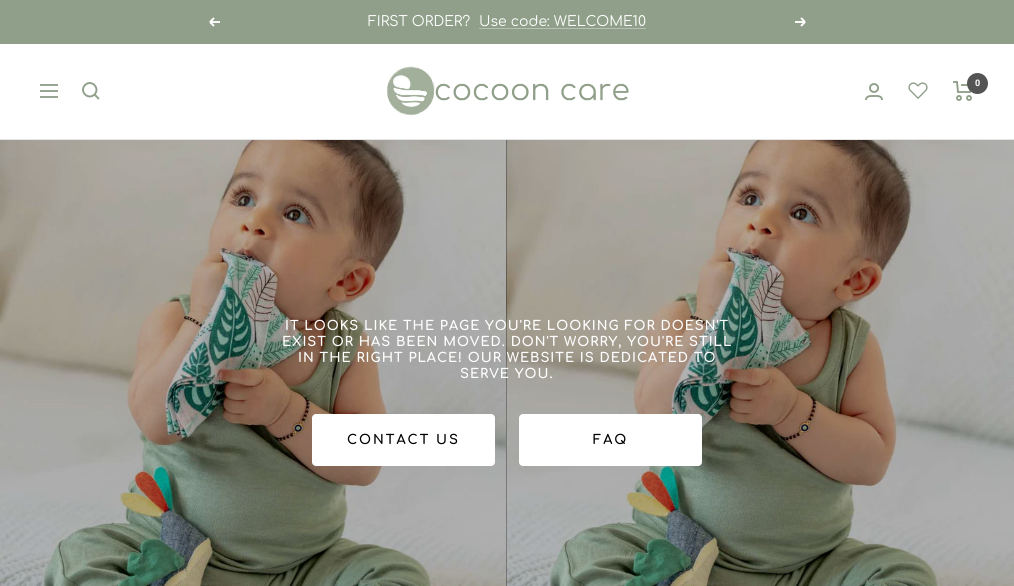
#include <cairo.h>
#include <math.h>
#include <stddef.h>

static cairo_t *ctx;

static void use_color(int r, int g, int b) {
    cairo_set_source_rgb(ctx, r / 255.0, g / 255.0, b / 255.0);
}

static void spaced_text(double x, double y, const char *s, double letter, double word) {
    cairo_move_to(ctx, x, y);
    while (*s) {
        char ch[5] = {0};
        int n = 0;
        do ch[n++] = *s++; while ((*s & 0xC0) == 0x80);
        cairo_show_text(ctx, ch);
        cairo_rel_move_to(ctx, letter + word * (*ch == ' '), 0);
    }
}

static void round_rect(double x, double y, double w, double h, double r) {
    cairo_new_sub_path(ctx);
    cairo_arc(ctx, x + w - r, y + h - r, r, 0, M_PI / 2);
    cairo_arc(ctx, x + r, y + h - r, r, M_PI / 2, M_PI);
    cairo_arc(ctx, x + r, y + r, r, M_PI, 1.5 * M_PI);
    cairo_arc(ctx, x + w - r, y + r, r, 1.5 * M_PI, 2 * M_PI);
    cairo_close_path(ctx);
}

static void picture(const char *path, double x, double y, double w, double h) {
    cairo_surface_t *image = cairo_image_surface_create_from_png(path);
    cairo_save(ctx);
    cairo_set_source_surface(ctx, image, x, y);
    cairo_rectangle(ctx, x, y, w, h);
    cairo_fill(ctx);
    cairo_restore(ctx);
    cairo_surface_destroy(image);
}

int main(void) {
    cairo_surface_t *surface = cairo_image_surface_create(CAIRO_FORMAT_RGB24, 1014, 586);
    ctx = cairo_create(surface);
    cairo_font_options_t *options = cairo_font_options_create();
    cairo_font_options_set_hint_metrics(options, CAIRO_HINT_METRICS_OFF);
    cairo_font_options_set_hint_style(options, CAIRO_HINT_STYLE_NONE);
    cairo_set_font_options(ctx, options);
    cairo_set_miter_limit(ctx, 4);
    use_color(255, 255, 255);
    cairo_paint(ctx);
    use_color(144, 159, 138);
    cairo_rectangle(ctx, 0, 0, 1014, 44);
    cairo_fill(ctx);
    cairo_new_path(ctx);
    cairo_move_to(ctx, 220, 22);
    cairo_line_to(ctx, 210, 22);
    cairo_move_to(ctx, 210, 22);
    cairo_line_to(ctx, 214, 26);
    cairo_move_to(ctx, 210, 22);
    cairo_line_to(ctx, 214, 18);
    use_color(255, 255, 255);
    cairo_set_line_width(ctx, 1.9);
    cairo_stroke(ctx);
    cairo_select_font_face(ctx, "Comfortaa", CAIRO_FONT_SLANT_NORMAL, CAIRO_FONT_WEIGHT_NORMAL);
    cairo_set_font_size(ctx, 14);
    cairo_move_to(ctx, 368, 26);
    cairo_show_text(ctx, "FIRST ORDER?");
    cairo_move_to(ctx, 479, 26);
    cairo_show_text(ctx, "Use code: WELCOME10");
    use_color(183, 193, 179);
    cairo_rectangle(ctx, 479, 28, 167, 1);
    cairo_fill(ctx);
    cairo_new_path(ctx);
    cairo_move_to(ctx, 795, 22);
    cairo_line_to(ctx, 805, 22);
    cairo_move_to(ctx, 805, 22);
    cairo_line_to(ctx, 801, 26);
    cairo_move_to(ctx, 805, 22);
    cairo_line_to(ctx, 801, 18);
    use_color(255, 255, 255);
    cairo_stroke(ctx);
    use_color(229, 229, 229);
    cairo_rectangle(ctx, 0, 139, 1014, 1);
    cairo_fill(ctx);
    cairo_new_path(ctx);
    cairo_move_to(ctx, 40, 85);
    cairo_line_to(ctx, 58, 85);
    cairo_move_to(ctx, 40, 97);
    cairo_line_to(ctx, 58, 97);
    cairo_close_path(ctx);
    cairo_move_to(ctx, 40, 91);
    cairo_line_to(ctx, 58, 91);
    cairo_close_path(ctx);
    cairo_move_to(ctx, 94.5, 94.5);
    cairo_curve_to(ctx, 100.5, 88, 91.5, 79, 85, 85);
    cairo_curve_to(ctx, 79, 91.5, 88, 100.5, 94.5, 94.5);
    cairo_close_path(ctx);
    cairo_move_to(ctx, 94.5, 94.5);
    cairo_line_to(ctx, 99, 99);
    use_color(144, 159, 138);
    cairo_stroke(ctx);
    picture("img1.png", 387, 66, 242, 50);
    cairo_arc(ctx, 874, 88, 4, 0, 2 * M_PI);
    cairo_stroke(ctx);
    cairo_new_path(ctx);
    cairo_move_to(ctx, 866, 100);
    cairo_curve_to(ctx, 866, 95.5, 871, 96, 874, 96);
    cairo_curve_to(ctx, 877, 96, 882, 95.5, 882, 100);
    cairo_stroke(ctx);
    picture("img2.png", 908, 82, 20, 17);
    cairo_new_path(ctx);
    cairo_move_to(ctx, 953, 82);
    cairo_line_to(ctx, 957, 82);
    cairo_line_to(ctx, 958, 92);
    cairo_line_to(ctx, 970, 92);
    cairo_line_to(ctx, 972, 85);
    cairo_line_to(ctx, 961, 85);
    cairo_stroke(ctx);
    cairo_arc(ctx, 959, 98, 2, 0, 2 * M_PI);
    cairo_stroke(ctx);
    cairo_arc(ctx, 969, 98, 2, 0, 2 * M_PI);
    cairo_stroke(ctx);
    use_color(84, 84, 84);
    cairo_arc(ctx, 977.5, 83.5, 10.5, 0, 2 * M_PI);
    cairo_fill(ctx);
    cairo_select_font_face(ctx, "Roboto", CAIRO_FONT_SLANT_NORMAL, CAIRO_FONT_WEIGHT_BOLD);
    cairo_set_font_size(ctx, 9);
    use_color(255, 255, 255);
    cairo_move_to(ctx, 975, 86);
    cairo_show_text(ctx, "0");
    picture("img3.png", 0, 140, 506, 446);
    picture("img4.png", 506, 140, 508, 446);
    cairo_set_source_rgba(ctx, 0, 0, 0, 0.3);
    cairo_rectangle(ctx, 0, 140, 507, 446);
    cairo_fill(ctx);
    cairo_rectangle(ctx, 506, 140, 508, 446);
    cairo_fill(ctx);
    cairo_select_font_face(ctx, "Comfortaa", CAIRO_FONT_SLANT_NORMAL, CAIRO_FONT_WEIGHT_BOLD);
    cairo_set_font_size(ctx, 13);
    use_color(255, 255, 255);
    spaced_text(285, 330, "IT LOOKS LIKE THE PAGE YOU'RE LOOKING FOR DOESN'T", 1, 0);
    spaced_text(282, 346, "EXIST OR HAS BEEN MOVED. DON'T WORRY, YOU'RE STILL", 1, 0);
    spaced_text(298, 362, "IN THE RIGHT PLACE! OUR WEBSITE IS DEDICATED TO", 1, 0);
    spaced_text(460, 378, "SERVE YOU.", 1, 0);
    round_rect(312, 414, 183, 52, 4);
    cairo_fill(ctx);
    use_color(0, 0, 0);
    spaced_text(347, 444, "CONTACT US", 2, 0);
    use_color(255, 255, 255);
    round_rect(519, 414, 183, 52, 4);
    cairo_fill(ctx);
    use_color(0, 0, 0);
    spaced_text(593, 444, "FAQ", 2, 0);
    cairo_surface_write_to_png(surface, "result.png");
    cairo_font_options_destroy(options);
    cairo_destroy(ctx);
    cairo_surface_destroy(surface);
    return 0;
}
